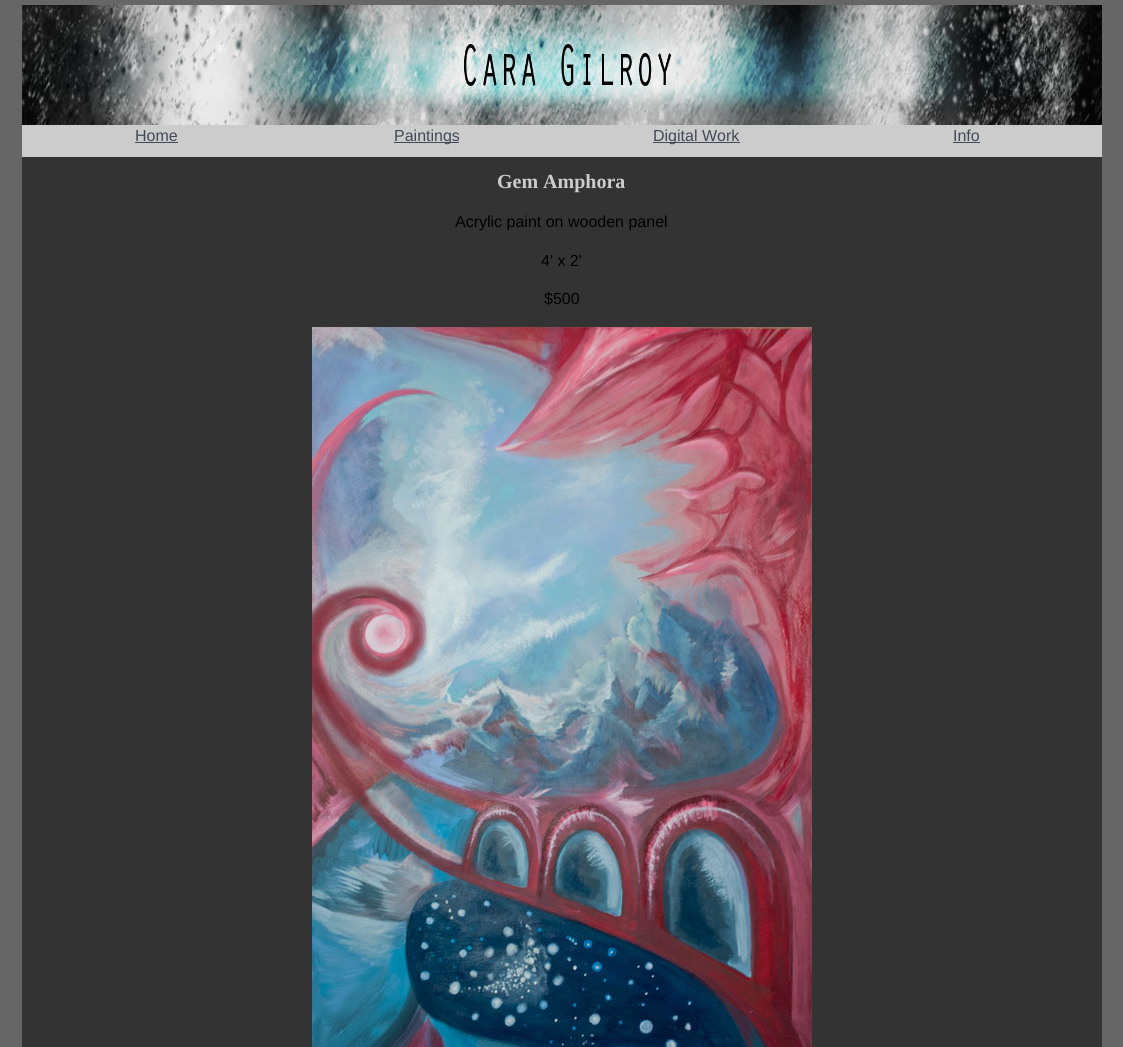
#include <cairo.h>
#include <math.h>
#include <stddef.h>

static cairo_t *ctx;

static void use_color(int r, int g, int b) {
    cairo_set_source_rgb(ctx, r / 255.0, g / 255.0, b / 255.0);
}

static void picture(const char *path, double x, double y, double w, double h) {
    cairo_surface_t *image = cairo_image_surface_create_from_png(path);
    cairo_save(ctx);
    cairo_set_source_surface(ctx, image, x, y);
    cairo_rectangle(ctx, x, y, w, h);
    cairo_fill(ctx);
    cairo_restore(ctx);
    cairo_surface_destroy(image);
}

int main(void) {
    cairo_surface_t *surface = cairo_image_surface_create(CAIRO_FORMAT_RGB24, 1123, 1047);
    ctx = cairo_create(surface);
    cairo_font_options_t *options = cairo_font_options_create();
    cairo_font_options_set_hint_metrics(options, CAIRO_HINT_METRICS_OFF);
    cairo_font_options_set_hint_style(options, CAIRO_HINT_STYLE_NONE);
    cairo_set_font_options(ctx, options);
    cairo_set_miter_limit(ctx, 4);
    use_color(102, 102, 102);
    cairo_paint(ctx);
    picture("img1.png", 22, 5, 1080, 120);
    use_color(204, 204, 204);
    cairo_rectangle(ctx, 22, 125, 1080, 32);
    cairo_fill(ctx);
    cairo_select_font_face(ctx, "Liberation Sans", CAIRO_FONT_SLANT_NORMAL, CAIRO_FONT_WEIGHT_NORMAL);
    cairo_set_font_size(ctx, 16);
    use_color(65, 73, 88);
    cairo_move_to(ctx, 135, 141);
    cairo_show_text(ctx, "Home");
    cairo_rectangle(ctx, 135, 142, 43, 1);
    cairo_fill(ctx);
    cairo_rectangle(ctx, 394, 142, 65, 1);
    cairo_fill(ctx);
    cairo_move_to(ctx, 394, 141);
    cairo_show_text(ctx, "Paintings");
    cairo_rectangle(ctx, 653, 142, 87, 1);
    cairo_fill(ctx);
    cairo_move_to(ctx, 653, 141);
    cairo_show_text(ctx, "Digital Work");
    cairo_move_to(ctx, 953, 141);
    cairo_show_text(ctx, "Info");
    cairo_rectangle(ctx, 953, 142, 27, 1);
    cairo_fill(ctx);
    use_color(51, 51, 51);
    cairo_rectangle(ctx, 22, 157, 1080, 890);
    cairo_fill(ctx);
    cairo_select_font_face(ctx, "Liberation Serif", CAIRO_FONT_SLANT_NORMAL, CAIRO_FONT_WEIGHT_BOLD);
    cairo_set_font_size(ctx, 20);
    use_color(204, 204, 204);
    cairo_move_to(ctx, 497, 188);
    cairo_show_text(ctx, "Gem Amphora");
    cairo_select_font_face(ctx, "Liberation Sans", CAIRO_FONT_SLANT_NORMAL, CAIRO_FONT_WEIGHT_NORMAL);
    cairo_set_font_size(ctx, 16);
    use_color(0, 0, 0);
    cairo_move_to(ctx, 455, 227);
    cairo_show_text(ctx, "Acrylic paint on wooden panel");
    cairo_move_to(ctx, 541, 266);
    cairo_show_text(ctx, "4' x 2'");
    cairo_move_to(ctx, 544, 304);
    cairo_show_text(ctx, "$500");
    picture("img2.png", 312, 327, 500, 720);
    cairo_surface_write_to_png(surface, "result.png");
    cairo_font_options_destroy(options);
    cairo_destroy(ctx);
    cairo_surface_destroy(surface);
    return 0;
}
